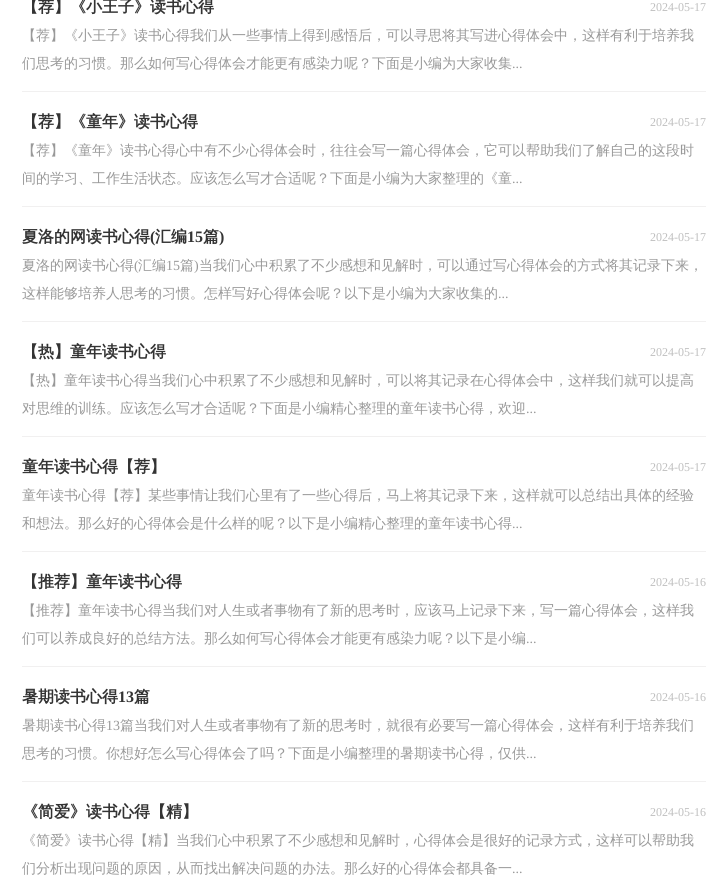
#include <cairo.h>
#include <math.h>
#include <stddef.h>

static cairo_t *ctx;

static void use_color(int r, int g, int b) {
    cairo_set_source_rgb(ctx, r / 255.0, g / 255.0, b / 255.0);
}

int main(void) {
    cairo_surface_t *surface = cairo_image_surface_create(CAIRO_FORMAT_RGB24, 728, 880);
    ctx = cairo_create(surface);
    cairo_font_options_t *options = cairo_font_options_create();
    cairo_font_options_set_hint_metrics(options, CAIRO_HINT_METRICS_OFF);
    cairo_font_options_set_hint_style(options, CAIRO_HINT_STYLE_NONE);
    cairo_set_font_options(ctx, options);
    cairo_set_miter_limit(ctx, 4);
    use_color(255, 255, 255);
    cairo_paint(ctx);
    use_color(241, 240, 240);
    cairo_rectangle(ctx, 22, 91, 684, 1);
    cairo_fill(ctx);
    cairo_select_font_face(ctx, "WenQuanYi Zen Hei", CAIRO_FONT_SLANT_NORMAL, CAIRO_FONT_WEIGHT_BOLD);
    cairo_set_font_size(ctx, 16);
    use_color(51, 51, 51);
    cairo_move_to(ctx, 22, 12);
    cairo_show_text(ctx, "【荐】《小王子》读书心得");
    cairo_select_font_face(ctx, "Liberation Serif", CAIRO_FONT_SLANT_NORMAL, CAIRO_FONT_WEIGHT_NORMAL);
    cairo_set_font_size(ctx, 12);
    use_color(191, 191, 191);
    cairo_move_to(ctx, 650, 11);
    cairo_show_text(ctx, "2024-05-17");
    cairo_select_font_face(ctx, "WenQuanYi Zen Hei Medium", CAIRO_FONT_SLANT_NORMAL, CAIRO_FONT_WEIGHT_NORMAL);
    cairo_set_font_size(ctx, 14);
    use_color(153, 153, 153);
    cairo_move_to(ctx, 22, 40);
    cairo_show_text(ctx, "【荐】《小王子》读书心得我们从一些事情上得到感悟后，可以寻思将其写进心得体会中，这样有利于培养我");
    cairo_move_to(ctx, 22, 68);
    cairo_show_text(ctx, "们思考的习惯。那么如何写心得体会才能更有感染力呢？下面是小编为大家收集");
    cairo_select_font_face(ctx, "Liberation Serif", CAIRO_FONT_SLANT_NORMAL, CAIRO_FONT_WEIGHT_NORMAL);
    cairo_move_to(ctx, 512, 68);
    cairo_show_text(ctx, "...");
    use_color(241, 240, 240);
    cairo_rectangle(ctx, 22, 206, 684, 1);
    cairo_fill(ctx);
    cairo_select_font_face(ctx, "WenQuanYi Zen Hei", CAIRO_FONT_SLANT_NORMAL, CAIRO_FONT_WEIGHT_BOLD);
    cairo_set_font_size(ctx, 16);
    use_color(51, 51, 51);
    cairo_move_to(ctx, 22, 127);
    cairo_show_text(ctx, "【荐】《童年》读书心得");
    cairo_select_font_face(ctx, "Liberation Serif", CAIRO_FONT_SLANT_NORMAL, CAIRO_FONT_WEIGHT_NORMAL);
    cairo_set_font_size(ctx, 12);
    use_color(191, 191, 191);
    cairo_move_to(ctx, 650, 126);
    cairo_show_text(ctx, "2024-05-17");
    cairo_select_font_face(ctx, "WenQuanYi Zen Hei Medium", CAIRO_FONT_SLANT_NORMAL, CAIRO_FONT_WEIGHT_NORMAL);
    cairo_set_font_size(ctx, 14);
    use_color(153, 153, 153);
    cairo_move_to(ctx, 22, 155);
    cairo_show_text(ctx, "【荐】《童年》读书心得心中有不少心得体会时，往往会写一篇心得体会，它可以帮助我们了解自己的这段时");
    cairo_move_to(ctx, 22, 183);
    cairo_show_text(ctx, "间的学习、工作生活状态。应该怎么写才合适呢？下面是小编为大家整理的《童");
    cairo_select_font_face(ctx, "Liberation Serif", CAIRO_FONT_SLANT_NORMAL, CAIRO_FONT_WEIGHT_NORMAL);
    cairo_move_to(ctx, 512, 183);
    cairo_show_text(ctx, "...");
    use_color(241, 240, 240);
    cairo_rectangle(ctx, 22, 321, 684, 1);
    cairo_fill(ctx);
    cairo_select_font_face(ctx, "WenQuanYi Zen Hei", CAIRO_FONT_SLANT_NORMAL, CAIRO_FONT_WEIGHT_BOLD);
    cairo_set_font_size(ctx, 16);
    use_color(51, 51, 51);
    cairo_move_to(ctx, 22, 242);
    cairo_show_text(ctx, "夏洛的网读书心得");
    cairo_select_font_face(ctx, "Liberation Serif", CAIRO_FONT_SLANT_NORMAL, CAIRO_FONT_WEIGHT_BOLD);
    cairo_move_to(ctx, 150, 242);
    cairo_show_text(ctx, "(");
    cairo_select_font_face(ctx, "WenQuanYi Zen Hei", CAIRO_FONT_SLANT_NORMAL, CAIRO_FONT_WEIGHT_BOLD);
    cairo_move_to(ctx, 155, 242);
    cairo_show_text(ctx, "汇编");
    cairo_select_font_face(ctx, "Liberation Serif", CAIRO_FONT_SLANT_NORMAL, CAIRO_FONT_WEIGHT_BOLD);
    cairo_move_to(ctx, 187, 242);
    cairo_show_text(ctx, "15");
    cairo_select_font_face(ctx, "WenQuanYi Zen Hei", CAIRO_FONT_SLANT_NORMAL, CAIRO_FONT_WEIGHT_BOLD);
    cairo_move_to(ctx, 203, 242);
    cairo_show_text(ctx, "篇");
    cairo_select_font_face(ctx, "Liberation Serif", CAIRO_FONT_SLANT_NORMAL, CAIRO_FONT_WEIGHT_BOLD);
    cairo_move_to(ctx, 219, 242);
    cairo_show_text(ctx, ")");
    cairo_select_font_face(ctx, "Liberation Serif", CAIRO_FONT_SLANT_NORMAL, CAIRO_FONT_WEIGHT_NORMAL);
    cairo_set_font_size(ctx, 12);
    use_color(191, 191, 191);
    cairo_move_to(ctx, 650, 241);
    cairo_show_text(ctx, "2024-05-17");
    cairo_select_font_face(ctx, "WenQuanYi Zen Hei Medium", CAIRO_FONT_SLANT_NORMAL, CAIRO_FONT_WEIGHT_NORMAL);
    cairo_set_font_size(ctx, 14);
    use_color(153, 153, 153);
    cairo_move_to(ctx, 22, 270);
    cairo_show_text(ctx, "夏洛的网读书心得");
    cairo_select_font_face(ctx, "Liberation Serif", CAIRO_FONT_SLANT_NORMAL, CAIRO_FONT_WEIGHT_NORMAL);
    cairo_move_to(ctx, 134, 270);
    cairo_show_text(ctx, "(");
    cairo_select_font_face(ctx, "WenQuanYi Zen Hei Medium", CAIRO_FONT_SLANT_NORMAL, CAIRO_FONT_WEIGHT_NORMAL);
    cairo_move_to(ctx, 138, 270);
    cairo_show_text(ctx, "汇编");
    cairo_select_font_face(ctx, "Liberation Serif", CAIRO_FONT_SLANT_NORMAL, CAIRO_FONT_WEIGHT_NORMAL);
    cairo_move_to(ctx, 166, 270);
    cairo_show_text(ctx, "15");
    cairo_select_font_face(ctx, "WenQuanYi Zen Hei Medium", CAIRO_FONT_SLANT_NORMAL, CAIRO_FONT_WEIGHT_NORMAL);
    cairo_move_to(ctx, 180, 270);
    cairo_show_text(ctx, "篇");
    cairo_select_font_face(ctx, "Liberation Serif", CAIRO_FONT_SLANT_NORMAL, CAIRO_FONT_WEIGHT_NORMAL);
    cairo_move_to(ctx, 194, 270);
    cairo_show_text(ctx, ")");
    cairo_select_font_face(ctx, "WenQuanYi Zen Hei Medium", CAIRO_FONT_SLANT_NORMAL, CAIRO_FONT_WEIGHT_NORMAL);
    cairo_move_to(ctx, 199, 270);
    cairo_show_text(ctx, "当我们心中积累了不少感想和见解时，可以通过写心得体会的方式将其记录下来，");
    cairo_move_to(ctx, 22, 298);
    cairo_show_text(ctx, "这样能够培养人思考的习惯。怎样写好心得体会呢？以下是小编为大家收集的");
    cairo_select_font_face(ctx, "Liberation Serif", CAIRO_FONT_SLANT_NORMAL, CAIRO_FONT_WEIGHT_NORMAL);
    cairo_move_to(ctx, 498, 298);
    cairo_show_text(ctx, "...");
    use_color(241, 240, 240);
    cairo_rectangle(ctx, 22, 436, 684, 1);
    cairo_fill(ctx);
    cairo_select_font_face(ctx, "WenQuanYi Zen Hei", CAIRO_FONT_SLANT_NORMAL, CAIRO_FONT_WEIGHT_BOLD);
    cairo_set_font_size(ctx, 16);
    use_color(51, 51, 51);
    cairo_move_to(ctx, 22, 357);
    cairo_show_text(ctx, "【热】童年读书心得");
    cairo_select_font_face(ctx, "Liberation Serif", CAIRO_FONT_SLANT_NORMAL, CAIRO_FONT_WEIGHT_NORMAL);
    cairo_set_font_size(ctx, 12);
    use_color(191, 191, 191);
    cairo_move_to(ctx, 650, 356);
    cairo_show_text(ctx, "2024-05-17");
    cairo_select_font_face(ctx, "WenQuanYi Zen Hei Medium", CAIRO_FONT_SLANT_NORMAL, CAIRO_FONT_WEIGHT_NORMAL);
    cairo_set_font_size(ctx, 14);
    use_color(153, 153, 153);
    cairo_move_to(ctx, 22, 385);
    cairo_show_text(ctx, "【热】童年读书心得当我们心中积累了不少感想和见解时，可以将其记录在心得体会中，这样我们就可以提高");
    cairo_move_to(ctx, 22, 413);
    cairo_show_text(ctx, "对思维的训练。应该怎么写才合适呢？下面是小编精心整理的童年读书心得，欢迎");
    cairo_select_font_face(ctx, "Liberation Serif", CAIRO_FONT_SLANT_NORMAL, CAIRO_FONT_WEIGHT_NORMAL);
    cairo_move_to(ctx, 526, 413);
    cairo_show_text(ctx, "...");
    use_color(241, 240, 240);
    cairo_rectangle(ctx, 22, 551, 684, 1);
    cairo_fill(ctx);
    cairo_select_font_face(ctx, "WenQuanYi Zen Hei", CAIRO_FONT_SLANT_NORMAL, CAIRO_FONT_WEIGHT_BOLD);
    cairo_set_font_size(ctx, 16);
    use_color(51, 51, 51);
    cairo_move_to(ctx, 22, 472);
    cairo_show_text(ctx, "童年读书心得【荐】");
    cairo_select_font_face(ctx, "Liberation Serif", CAIRO_FONT_SLANT_NORMAL, CAIRO_FONT_WEIGHT_NORMAL);
    cairo_set_font_size(ctx, 12);
    use_color(191, 191, 191);
    cairo_move_to(ctx, 650, 471);
    cairo_show_text(ctx, "2024-05-17");
    cairo_select_font_face(ctx, "WenQuanYi Zen Hei Medium", CAIRO_FONT_SLANT_NORMAL, CAIRO_FONT_WEIGHT_NORMAL);
    cairo_set_font_size(ctx, 14);
    use_color(153, 153, 153);
    cairo_move_to(ctx, 22, 500);
    cairo_show_text(ctx, "童年读书心得【荐】某些事情让我们心里有了一些心得后，马上将其记录下来，这样就可以总结出具体的经验");
    cairo_move_to(ctx, 22, 528);
    cairo_show_text(ctx, "和想法。那么好的心得体会是什么样的呢？以下是小编精心整理的童年读书心得");
    cairo_select_font_face(ctx, "Liberation Serif", CAIRO_FONT_SLANT_NORMAL, CAIRO_FONT_WEIGHT_NORMAL);
    cairo_move_to(ctx, 512, 528);
    cairo_show_text(ctx, "...");
    use_color(241, 240, 240);
    cairo_rectangle(ctx, 22, 666, 684, 1);
    cairo_fill(ctx);
    cairo_select_font_face(ctx, "WenQuanYi Zen Hei", CAIRO_FONT_SLANT_NORMAL, CAIRO_FONT_WEIGHT_BOLD);
    cairo_set_font_size(ctx, 16);
    use_color(51, 51, 51);
    cairo_move_to(ctx, 22, 587);
    cairo_show_text(ctx, "【推荐】童年读书心得");
    cairo_select_font_face(ctx, "Liberation Serif", CAIRO_FONT_SLANT_NORMAL, CAIRO_FONT_WEIGHT_NORMAL);
    cairo_set_font_size(ctx, 12);
    use_color(191, 191, 191);
    cairo_move_to(ctx, 650, 586);
    cairo_show_text(ctx, "2024-05-16");
    cairo_select_font_face(ctx, "WenQuanYi Zen Hei Medium", CAIRO_FONT_SLANT_NORMAL, CAIRO_FONT_WEIGHT_NORMAL);
    cairo_set_font_size(ctx, 14);
    use_color(153, 153, 153);
    cairo_move_to(ctx, 22, 615);
    cairo_show_text(ctx, "【推荐】童年读书心得当我们对人生或者事物有了新的思考时，应该马上记录下来，写一篇心得体会，这样我");
    cairo_move_to(ctx, 22, 643);
    cairo_show_text(ctx, "们可以养成良好的总结方法。那么如何写心得体会才能更有感染力呢？以下是小编");
    cairo_select_font_face(ctx, "Liberation Serif", CAIRO_FONT_SLANT_NORMAL, CAIRO_FONT_WEIGHT_NORMAL);
    cairo_move_to(ctx, 526, 643);
    cairo_show_text(ctx, "...");
    use_color(241, 240, 240);
    cairo_rectangle(ctx, 22, 781, 684, 1);
    cairo_fill(ctx);
    cairo_select_font_face(ctx, "WenQuanYi Zen Hei", CAIRO_FONT_SLANT_NORMAL, CAIRO_FONT_WEIGHT_BOLD);
    cairo_set_font_size(ctx, 16);
    use_color(51, 51, 51);
    cairo_move_to(ctx, 22, 702);
    cairo_show_text(ctx, "暑期读书心得");
    cairo_select_font_face(ctx, "Liberation Serif", CAIRO_FONT_SLANT_NORMAL, CAIRO_FONT_WEIGHT_BOLD);
    cairo_move_to(ctx, 118, 702);
    cairo_show_text(ctx, "13");
    cairo_select_font_face(ctx, "WenQuanYi Zen Hei", CAIRO_FONT_SLANT_NORMAL, CAIRO_FONT_WEIGHT_BOLD);
    cairo_move_to(ctx, 134, 702);
    cairo_show_text(ctx, "篇");
    cairo_select_font_face(ctx, "Liberation Serif", CAIRO_FONT_SLANT_NORMAL, CAIRO_FONT_WEIGHT_NORMAL);
    cairo_set_font_size(ctx, 12);
    use_color(191, 191, 191);
    cairo_move_to(ctx, 650, 701);
    cairo_show_text(ctx, "2024-05-16");
    cairo_select_font_face(ctx, "WenQuanYi Zen Hei Medium", CAIRO_FONT_SLANT_NORMAL, CAIRO_FONT_WEIGHT_NORMAL);
    cairo_set_font_size(ctx, 14);
    use_color(153, 153, 153);
    cairo_move_to(ctx, 22, 730);
    cairo_show_text(ctx, "暑期读书心得");
    cairo_select_font_face(ctx, "Liberation Serif", CAIRO_FONT_SLANT_NORMAL, CAIRO_FONT_WEIGHT_NORMAL);
    cairo_move_to(ctx, 106, 730);
    cairo_show_text(ctx, "13");
    cairo_select_font_face(ctx, "WenQuanYi Zen Hei Medium", CAIRO_FONT_SLANT_NORMAL, CAIRO_FONT_WEIGHT_NORMAL);
    cairo_move_to(ctx, 120, 730);
    cairo_show_text(ctx, "篇当我们对人生或者事物有了新的思考时，就很有必要写一篇心得体会，这样有利于培养我们");
    cairo_move_to(ctx, 22, 758);
    cairo_show_text(ctx, "思考的习惯。你想好怎么写心得体会了吗？下面是小编整理的暑期读书心得，仅供");
    cairo_select_font_face(ctx, "Liberation Serif", CAIRO_FONT_SLANT_NORMAL, CAIRO_FONT_WEIGHT_NORMAL);
    cairo_move_to(ctx, 526, 758);
    cairo_show_text(ctx, "...");
    cairo_select_font_face(ctx, "WenQuanYi Zen Hei", CAIRO_FONT_SLANT_NORMAL, CAIRO_FONT_WEIGHT_BOLD);
    cairo_set_font_size(ctx, 16);
    use_color(51, 51, 51);
    cairo_move_to(ctx, 22, 817);
    cairo_show_text(ctx, "《简爱》读书心得【精】");
    cairo_select_font_face(ctx, "Liberation Serif", CAIRO_FONT_SLANT_NORMAL, CAIRO_FONT_WEIGHT_NORMAL);
    cairo_set_font_size(ctx, 12);
    use_color(191, 191, 191);
    cairo_move_to(ctx, 650, 816);
    cairo_show_text(ctx, "2024-05-16");
    cairo_select_font_face(ctx, "WenQuanYi Zen Hei Medium", CAIRO_FONT_SLANT_NORMAL, CAIRO_FONT_WEIGHT_NORMAL);
    cairo_set_font_size(ctx, 14);
    use_color(153, 153, 153);
    cairo_move_to(ctx, 22, 845);
    cairo_show_text(ctx, "《简爱》读书心得【精】当我们心中积累了不少感想和见解时，心得体会是很好的记录方式，这样可以帮助我");
    cairo_move_to(ctx, 22, 873);
    cairo_show_text(ctx, "们分析出现问题的原因，从而找出解决问题的办法。那么好的心得体会都具备一");
    cairo_select_font_face(ctx, "Liberation Serif", CAIRO_FONT_SLANT_NORMAL, CAIRO_FONT_WEIGHT_NORMAL);
    cairo_move_to(ctx, 512, 873);
    cairo_show_text(ctx, "...");
    cairo_surface_write_to_png(surface, "result.png");
    cairo_font_options_destroy(options);
    cairo_destroy(ctx);
    cairo_surface_destroy(surface);
    return 0;
}
